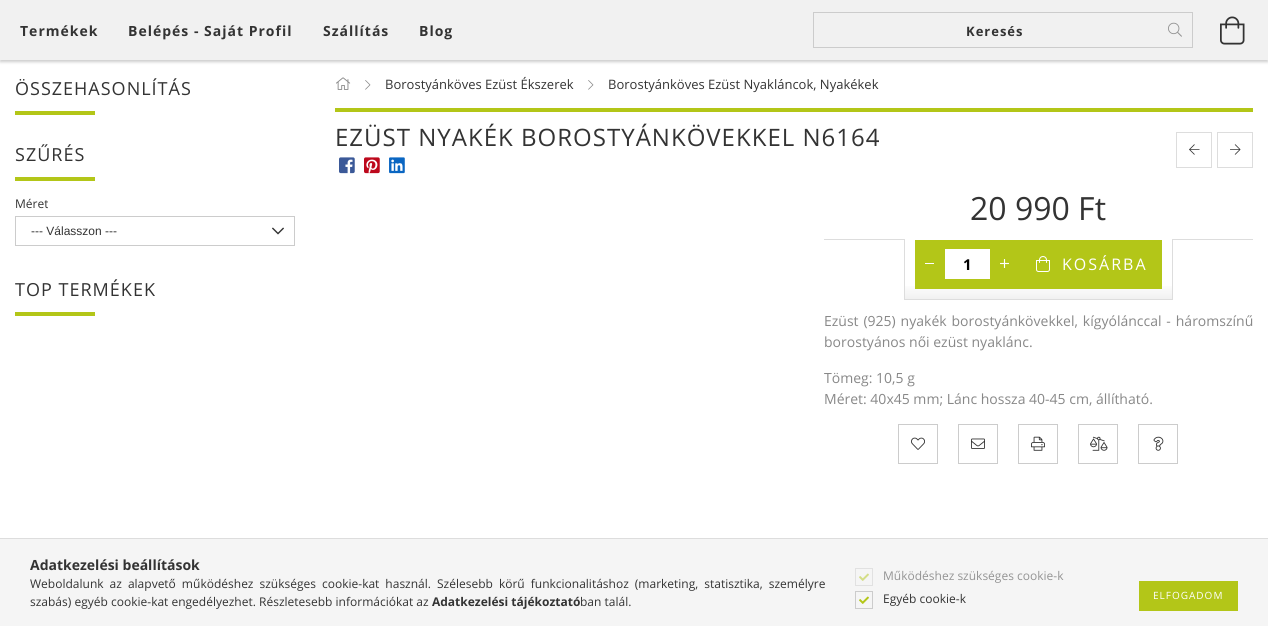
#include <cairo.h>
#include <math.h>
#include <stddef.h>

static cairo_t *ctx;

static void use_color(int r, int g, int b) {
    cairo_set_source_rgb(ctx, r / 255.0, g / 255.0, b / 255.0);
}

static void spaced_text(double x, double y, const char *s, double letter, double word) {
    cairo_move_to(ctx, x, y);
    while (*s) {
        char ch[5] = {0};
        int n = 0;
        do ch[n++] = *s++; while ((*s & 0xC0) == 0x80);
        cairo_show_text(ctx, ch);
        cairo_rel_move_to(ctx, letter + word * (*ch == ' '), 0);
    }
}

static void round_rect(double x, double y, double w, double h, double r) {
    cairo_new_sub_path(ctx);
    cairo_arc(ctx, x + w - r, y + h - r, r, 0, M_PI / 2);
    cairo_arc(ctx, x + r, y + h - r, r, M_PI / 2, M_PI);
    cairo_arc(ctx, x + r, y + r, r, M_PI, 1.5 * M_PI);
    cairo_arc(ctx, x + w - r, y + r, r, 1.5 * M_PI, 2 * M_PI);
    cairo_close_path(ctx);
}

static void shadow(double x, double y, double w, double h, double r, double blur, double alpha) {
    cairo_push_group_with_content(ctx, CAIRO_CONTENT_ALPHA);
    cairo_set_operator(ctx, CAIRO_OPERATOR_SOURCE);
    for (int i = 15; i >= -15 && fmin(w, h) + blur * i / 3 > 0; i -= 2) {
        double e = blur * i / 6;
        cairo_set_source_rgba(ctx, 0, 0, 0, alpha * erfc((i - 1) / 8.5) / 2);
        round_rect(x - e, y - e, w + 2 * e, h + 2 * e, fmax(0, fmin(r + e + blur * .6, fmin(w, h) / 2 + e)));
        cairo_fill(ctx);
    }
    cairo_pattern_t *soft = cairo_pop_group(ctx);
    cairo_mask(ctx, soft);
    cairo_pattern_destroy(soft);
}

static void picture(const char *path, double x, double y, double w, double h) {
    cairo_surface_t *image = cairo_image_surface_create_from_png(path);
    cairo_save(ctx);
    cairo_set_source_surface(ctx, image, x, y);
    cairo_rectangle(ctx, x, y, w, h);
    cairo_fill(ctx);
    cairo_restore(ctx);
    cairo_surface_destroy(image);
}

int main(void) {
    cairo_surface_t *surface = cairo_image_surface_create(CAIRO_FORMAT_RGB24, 1268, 626);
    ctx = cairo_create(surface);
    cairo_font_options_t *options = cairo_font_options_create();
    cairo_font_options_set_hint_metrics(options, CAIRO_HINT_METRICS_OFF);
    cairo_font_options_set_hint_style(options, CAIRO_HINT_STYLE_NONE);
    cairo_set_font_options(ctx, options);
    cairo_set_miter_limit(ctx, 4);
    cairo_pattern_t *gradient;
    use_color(255, 255, 255);
    cairo_paint(ctx);
    use_color(0, 0, 0);
    shadow(0, 2, 1268, 60, 0, 1.5, 0.2);
    use_color(241, 241, 241);
    cairo_rectangle(ctx, 0, 0, 1268, 60);
    cairo_fill(ctx);
    cairo_select_font_face(ctx, "Open Sans", CAIRO_FONT_SLANT_NORMAL, CAIRO_FONT_WEIGHT_BOLD);
    cairo_set_font_size(ctx, 14);
    use_color(51, 51, 51);
    spaced_text(20, 36, "Termékek", 1, 0);
    spaced_text(128, 36, "Belépés - Saját Profil", 1, 0);
    spaced_text(323, 36, "Szállítás", 1, 0);
    spaced_text(419, 36, "Blog", 1, 0);
    cairo_rectangle(ctx, 813.5, 12.5, 379, 35);
    use_color(204, 204, 204);
    cairo_set_line_width(ctx, 1);
    cairo_stroke(ctx);
    cairo_set_font_size(ctx, 13);
    use_color(51, 51, 51);
    spaced_text(966, 36, "Keresés", 1, 0);
    picture("img1.png", 1168, 22, 14, 15);
    picture("img2.png", 1220, 16, 25, 29);
    cairo_select_font_face(ctx, "Open Sans", CAIRO_FONT_SLANT_NORMAL, CAIRO_FONT_WEIGHT_NORMAL);
    cairo_set_font_size(ctx, 18);
    spaced_text(15, 95, "ÖSSZEHASONLÍTÁS", 1, 0);
    use_color(179, 198, 24);
    cairo_rectangle(ctx, 15, 111, 80, 4);
    cairo_fill(ctx);
    use_color(51, 51, 51);
    spaced_text(15, 161, "SZŰRÉS", 1, 0);
    use_color(179, 198, 24);
    cairo_rectangle(ctx, 15, 177, 80, 4);
    cairo_fill(ctx);
    cairo_set_font_size(ctx, 12);
    use_color(51, 51, 51);
    cairo_move_to(ctx, 15, 208);
    cairo_show_text(ctx, "Méret");
    picture("img3.png", 272, 227, 12, 8);
    cairo_rectangle(ctx, 15.5, 216.5, 279, 29);
    use_color(204, 204, 204);
    cairo_stroke(ctx);
    cairo_select_font_face(ctx, "Liberation Sans", CAIRO_FONT_SLANT_NORMAL, CAIRO_FONT_WEIGHT_NORMAL);
    use_color(51, 51, 51);
    cairo_move_to(ctx, 31, 235);
    cairo_show_text(ctx, "--- Válasszon ---");
    cairo_select_font_face(ctx, "Open Sans", CAIRO_FONT_SLANT_NORMAL, CAIRO_FONT_WEIGHT_NORMAL);
    cairo_set_font_size(ctx, 18);
    spaced_text(15, 296, "TOP TERMÉKEK", 1, 0);
    use_color(179, 198, 24);
    cairo_rectangle(ctx, 15, 312, 80, 4);
    cairo_fill(ctx);
    picture("img4.png", 336, 77, 15, 13);
    picture("img5.png", 365, 80, 6, 10);
    cairo_set_font_size(ctx, 13);
    use_color(51, 51, 51);
    cairo_move_to(ctx, 385, 89);
    cairo_show_text(ctx, "Borostyánköves Ezüst Ékszerek");
    picture("img5.png", 588, 80, 6, 10);
    cairo_move_to(ctx, 608, 89);
    cairo_show_text(ctx, "Borostyánköves Ezüst Nyakláncok, Nyakékek");
    use_color(179, 198, 24);
    cairo_rectangle(ctx, 335, 108, 918, 4);
    cairo_fill(ctx);
    cairo_set_font_size(ctx, 24);
    use_color(51, 51, 51);
    spaced_text(335, 146, "EZÜST NYAKÉK BOROSTYÁNKÖVEKKEL N6164", 1, 0);
    picture("img6.png", 339, 157, 16, 17);
    picture("img7.png", 364, 157, 16, 17);
    picture("img8.png", 389, 157, 16, 17);
    cairo_rectangle(ctx, 1176.5, 132.5, 35, 35);
    use_color(221, 221, 221);
    cairo_stroke(ctx);
    picture("img9.png", 1189, 144, 11, 11);
    cairo_rectangle(ctx, 1217.5, 132.5, 35, 35);
    cairo_stroke(ctx);
    picture("img10.png", 1230, 144, 11, 11);
    cairo_set_font_size(ctx, 32);
    use_color(51, 51, 51);
    cairo_move_to(ctx, 970, 220);
    cairo_show_text(ctx, "20 990 Ft");
    use_color(221, 221, 221);
    cairo_rectangle(ctx, 824, 239, 429, 1);
    cairo_fill(ctx);
    gradient = cairo_pattern_create_linear(1039, 299, 1039, 239);
    cairo_pattern_add_color_stop_rgba(gradient, 0, 0.945, 0.945, 0.945, 1);
    cairo_pattern_add_color_stop_rgba(gradient, 0.25, 0.945, 0.945, 0.945, 0);
    cairo_pattern_add_color_stop_rgba(gradient, 1, 1, 1, 1, 0);
    cairo_set_source(ctx, gradient);
    cairo_pattern_destroy(gradient);
    cairo_rectangle(ctx, 905, 286, 267, 13);
    cairo_fill(ctx);
    use_color(221, 221, 221);
    cairo_rectangle(ctx, 1172, 239, 1, 61);
    cairo_fill(ctx);
    cairo_rectangle(ctx, 904, 299, 269, 1);
    cairo_fill(ctx);
    cairo_rectangle(ctx, 904, 239, 1, 61);
    cairo_fill(ctx);
    use_color(255, 255, 255);
    cairo_rectangle(ctx, 905, 239, 267, 1);
    cairo_fill(ctx);
    use_color(179, 198, 24);
    cairo_rectangle(ctx, 915, 240, 247, 49);
    cairo_fill(ctx);
    use_color(255, 255, 255);
    cairo_rectangle(ctx, 925, 263, 9, 1);
    cairo_fill(ctx);
    cairo_rectangle(ctx, 945, 249, 45, 30);
    cairo_fill(ctx);
    cairo_select_font_face(ctx, "Open Sans", CAIRO_FONT_SLANT_NORMAL, CAIRO_FONT_WEIGHT_BOLD);
    cairo_set_font_size(ctx, 15);
    use_color(0, 0, 0);
    cairo_move_to(ctx, 963, 270);
    cairo_show_text(ctx, "1");
    picture("img11.png", 1000, 259, 9, 9);
    picture("img12.png", 1036, 256, 14, 16);
    cairo_select_font_face(ctx, "Open Sans", CAIRO_FONT_SLANT_NORMAL, CAIRO_FONT_WEIGHT_NORMAL);
    cairo_set_font_size(ctx, 16);
    use_color(255, 255, 255);
    spaced_text(1062, 270, "KOSÁRBA", 2, 0);
    cairo_set_font_size(ctx, 14);
    use_color(136, 136, 136);
    spaced_text(824, 326, "Ezüst (925) nyakék borostyánkövekkel, kígyólánccal - háromszínű", 0, 1.25);
    cairo_move_to(ctx, 824, 347);
    cairo_show_text(ctx, "borostyános női ezüst nyaklánc.");
    cairo_move_to(ctx, 824, 383);
    cairo_show_text(ctx, "Tömeg: 10,5 g");
    cairo_move_to(ctx, 824, 404);
    cairo_show_text(ctx, "Méret: 40x45 mm; Lánc hossza 40-45 cm, állítható.");
    cairo_rectangle(ctx, 898.5, 424.5, 39, 39);
    use_color(204, 204, 204);
    cairo_stroke(ctx);
    picture("img13.png", 911, 437, 14, 13);
    cairo_rectangle(ctx, 958.5, 424.5, 39, 39);
    cairo_stroke(ctx);
    picture("img14.png", 971, 438, 14, 11);
    cairo_rectangle(ctx, 1018.5, 424.5, 39, 39);
    cairo_stroke(ctx);
    picture("img15.png", 1031, 436, 14, 15);
    cairo_rectangle(ctx, 1078.5, 424.5, 39, 39);
    cairo_stroke(ctx);
    picture("img16.png", 1090, 436, 18, 15);
    cairo_rectangle(ctx, 1138.5, 424.5, 39, 39);
    cairo_stroke(ctx);
    picture("img17.png", 1153, 436, 11, 15);
    use_color(245, 245, 245);
    cairo_rectangle(ctx, 0, 539, 1268, 87);
    cairo_fill(ctx);
    use_color(221, 221, 221);
    cairo_rectangle(ctx, 0, 538, 1268, 1);
    cairo_fill(ctx);
    cairo_select_font_face(ctx, "Open Sans", CAIRO_FONT_SLANT_NORMAL, CAIRO_FONT_WEIGHT_BOLD);
    use_color(51, 51, 51);
    cairo_move_to(ctx, 30, 570);
    cairo_show_text(ctx, "Adatkezelési beállítások");
    cairo_select_font_face(ctx, "Open Sans", CAIRO_FONT_SLANT_NORMAL, CAIRO_FONT_WEIGHT_NORMAL);
    cairo_set_font_size(ctx, 12);
    spaced_text(30, 588, "Weboldalunk az alapvető működéshez szükséges cookie-kat használ. Szélesebb körű funkcionalitáshoz (marketing, statisztika, személyre", 0, 2.9);
    cairo_move_to(ctx, 30, 606);
    cairo_show_text(ctx, "szabás) egyéb cookie-kat engedélyezhet. Részletesebb információkat az");
    cairo_select_font_face(ctx, "Open Sans", CAIRO_FONT_SLANT_NORMAL, CAIRO_FONT_WEIGHT_BOLD);
    cairo_move_to(ctx, 432, 606);
    cairo_show_text(ctx, "Adatkezelési tájékoztató");
    cairo_select_font_face(ctx, "Open Sans", CAIRO_FONT_SLANT_NORMAL, CAIRO_FONT_WEIGHT_NORMAL);
    cairo_move_to(ctx, 580, 606);
    cairo_show_text(ctx, "ban talál.");
    cairo_rectangle(ctx, 855.5, 568.5, 17, 17);
    use_color(225, 225, 225);
    cairo_stroke(ctx);
    picture("img18.png", 859, 573, 10, 8);
    use_color(148, 148, 148);
    cairo_move_to(ctx, 883, 580);
    cairo_show_text(ctx, "Működéshez szükséges cookie-k");
    cairo_rectangle(ctx, 855.5, 591.5, 17, 17);
    use_color(204, 204, 204);
    cairo_stroke(ctx);
    picture("img19.png", 859, 596, 10, 8);
    use_color(51, 51, 51);
    cairo_move_to(ctx, 883, 603);
    cairo_show_text(ctx, "Egyéb cookie-k");
    use_color(179, 198, 24);
    cairo_rectangle(ctx, 1139, 581, 99, 30);
    cairo_fill(ctx);
    cairo_set_font_size(ctx, 10);
    use_color(255, 255, 255);
    spaced_text(1153, 599, "ELFOGADOM", 1, 0);
    cairo_surface_write_to_png(surface, "result.png");
    cairo_font_options_destroy(options);
    cairo_destroy(ctx);
    cairo_surface_destroy(surface);
    return 0;
}
